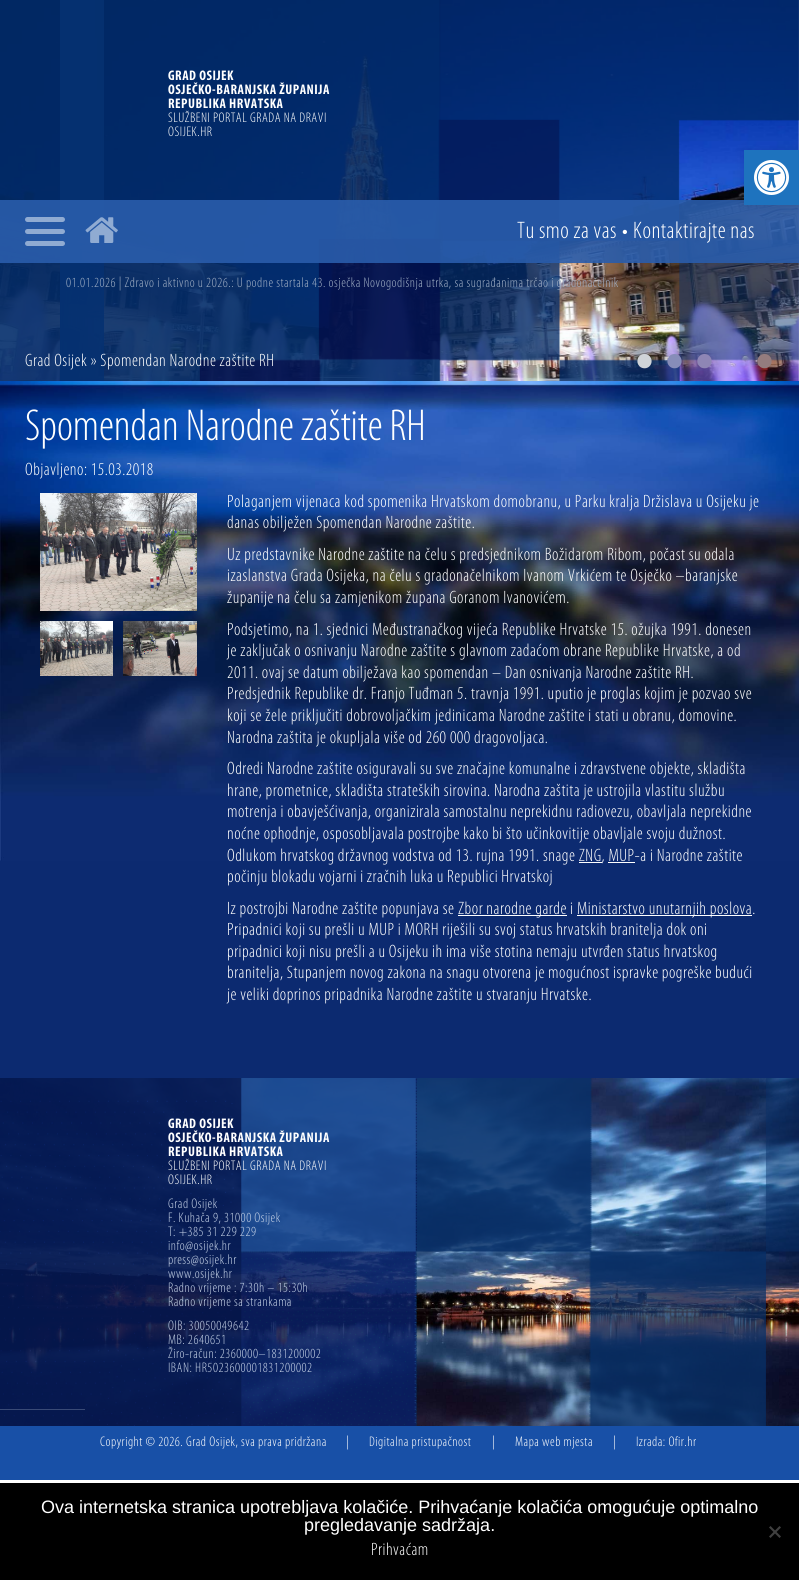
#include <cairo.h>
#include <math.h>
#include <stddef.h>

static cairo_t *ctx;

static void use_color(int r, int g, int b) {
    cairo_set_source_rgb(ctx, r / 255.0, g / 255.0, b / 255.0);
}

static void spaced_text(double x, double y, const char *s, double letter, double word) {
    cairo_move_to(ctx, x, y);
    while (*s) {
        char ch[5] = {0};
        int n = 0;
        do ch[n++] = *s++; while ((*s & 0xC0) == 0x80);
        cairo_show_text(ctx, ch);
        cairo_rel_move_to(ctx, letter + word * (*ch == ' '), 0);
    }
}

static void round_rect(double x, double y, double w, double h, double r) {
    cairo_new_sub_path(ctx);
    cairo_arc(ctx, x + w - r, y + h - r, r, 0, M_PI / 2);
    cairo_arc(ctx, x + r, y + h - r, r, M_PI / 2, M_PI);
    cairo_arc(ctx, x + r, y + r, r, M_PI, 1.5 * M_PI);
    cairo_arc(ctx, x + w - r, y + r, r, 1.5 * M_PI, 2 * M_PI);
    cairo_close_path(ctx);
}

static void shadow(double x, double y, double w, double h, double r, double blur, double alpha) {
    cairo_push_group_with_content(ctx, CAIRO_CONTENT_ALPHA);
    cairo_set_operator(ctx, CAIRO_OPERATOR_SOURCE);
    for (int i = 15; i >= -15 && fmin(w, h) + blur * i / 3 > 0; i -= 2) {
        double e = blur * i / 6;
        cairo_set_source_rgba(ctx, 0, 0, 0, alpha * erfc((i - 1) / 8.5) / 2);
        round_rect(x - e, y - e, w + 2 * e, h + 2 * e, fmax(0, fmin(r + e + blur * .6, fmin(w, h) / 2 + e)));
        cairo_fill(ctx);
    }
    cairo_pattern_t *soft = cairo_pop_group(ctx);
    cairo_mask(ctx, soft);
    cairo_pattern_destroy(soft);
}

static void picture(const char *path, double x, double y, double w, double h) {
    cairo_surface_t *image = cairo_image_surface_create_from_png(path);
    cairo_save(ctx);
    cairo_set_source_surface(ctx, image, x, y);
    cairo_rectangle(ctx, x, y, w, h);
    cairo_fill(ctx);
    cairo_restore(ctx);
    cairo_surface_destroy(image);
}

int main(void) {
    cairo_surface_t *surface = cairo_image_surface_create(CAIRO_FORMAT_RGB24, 799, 1580);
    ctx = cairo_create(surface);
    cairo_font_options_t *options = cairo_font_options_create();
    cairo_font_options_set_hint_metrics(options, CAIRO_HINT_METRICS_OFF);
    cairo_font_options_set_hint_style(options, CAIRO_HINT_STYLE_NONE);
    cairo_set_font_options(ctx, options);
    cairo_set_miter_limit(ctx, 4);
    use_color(255, 255, 255);
    cairo_paint(ctx);
    picture("img2.png", 0, 0, 799, 381);
    picture("img1.png", 0, 0, 799, 381);
    cairo_select_font_face(ctx, "Myriad", CAIRO_FONT_SLANT_NORMAL, CAIRO_FONT_WEIGHT_BOLD);
    cairo_set_font_size(ctx, 14);
    use_color(255, 255, 255);
    spaced_text(168, 80, "GRAD OSIJEK", 0.5, 0);
    spaced_text(168, 94, "OSJEČKO-BARANJSKA ŽUPANIJA", 0.5, 0);
    spaced_text(168, 108, "REPUBLIKA HRVATSKA", 0.5, 0);
    cairo_select_font_face(ctx, "Myriad Light", CAIRO_FONT_SLANT_NORMAL, CAIRO_FONT_WEIGHT_NORMAL);
    spaced_text(168, 122, "SLUŽBENI PORTAL GRADA NA DRAVI", 0.5, 0);
    spaced_text(168, 136, "OSIJEK.HR", 0.5, 0);
    cairo_set_source_rgba(ctx, 0.161, 0.361, 0.671, 0.9);
    cairo_rectangle(ctx, 0, 200, 799, 63);
    cairo_fill(ctx);
    use_color(144, 171, 210);
    round_rect(25, 217, 40, 5, 2.5);
    cairo_fill(ctx);
    round_rect(25, 229, 40, 5, 2.5);
    cairo_fill(ctx);
    round_rect(25, 241, 40, 5, 2.5);
    cairo_fill(ctx);
    picture("img3.png", 85, 217, 33, 26);
    cairo_set_font_size(ctx, 24);
    use_color(255, 255, 255);
    spaced_text(517, 238, "Tu smo za vas", 0.5, 0);
    spaced_text(622, 238, "•", 0.5, 0);
    spaced_text(633, 238, "Kontaktirajte nas", 0.5, 0);
    cairo_set_font_size(ctx, 14);
    use_color(159, 174, 196);
    spaced_text(66, 287, "01.01.2026 | Zdravo i aktivno u 2026.: U podne startala 43. osječka Novogodišnja utrka, sa sugrađanima trčao i gradonačelnik", 0.5, 0);
    cairo_set_font_size(ctx, 18);
    use_color(255, 255, 255);
    spaced_text(25, 366, "Grad Osijek » Spomendan Narodne zaštite RH", 0.5, 0);
    cairo_select_font_face(ctx, "Liberation Serif", CAIRO_FONT_SLANT_NORMAL, CAIRO_FONT_WEIGHT_NORMAL);
    cairo_set_font_size(ctx, 60);
    use_color(207, 211, 216);
    cairo_move_to(ctx, 634, 381);
    cairo_show_text(ctx, "•");
    use_color(135, 141, 185);
    cairo_move_to(ctx, 664, 381);
    cairo_show_text(ctx, "•");
    use_color(142, 134, 181);
    cairo_move_to(ctx, 694, 381);
    cairo_show_text(ctx, "•");
    use_color(148, 124, 126);
    cairo_move_to(ctx, 754, 381);
    cairo_show_text(ctx, "•");
    use_color(0, 0, 0);
    shadow(744, 150, 55, 55, 0, 5, 0.1);
    use_color(30, 115, 190);
    cairo_rectangle(ctx, 744, 150, 55, 55);
    cairo_fill(ctx);
    picture("img4.png", 754, 160, 35, 35);
    use_color(12, 42, 112);
    cairo_rectangle(ctx, 0, 861, 799, 217);
    cairo_fill(ctx);
    picture("img5.png", 0, 381, 799, 480);
    cairo_select_font_face(ctx, "Myriad Light", CAIRO_FONT_SLANT_NORMAL, CAIRO_FONT_WEIGHT_NORMAL);
    cairo_set_font_size(ctx, 45);
    use_color(255, 255, 255);
    cairo_move_to(ctx, 25, 440);
    cairo_show_text(ctx, "Spomendan Narodne zaštite RH");
    cairo_set_font_size(ctx, 18);
    spaced_text(25, 475, "Objavljeno: 15.03.2018", 0.5, 0);
    picture("img6.png", 40, 493, 157, 118);
    picture("img7.png", 40, 621, 73, 55);
    picture("img8.png", 123, 621, 74, 55);
    spaced_text(227, 507, "Polaganjem vijenaca kod spomenika Hrvatskom domobranu, u Parku kralja Držislava u Osijeku je", 0.5, 0);
    spaced_text(227, 528, "danas obilježen Spomendan Narodne zaštite.", 0.5, 0);
    spaced_text(227, 560, "Uz predstavnike Narodne zaštite na čelu s predsjednikom Božidarom Ribom, počast su odala", 0.5, 0);
    spaced_text(227, 581, "izaslanstva Grada Osijeka, na čelu s gradonačelnikom Ivanom Vrkićem te Osječko –baranjske", 0.5, 0);
    spaced_text(227, 603, "županije na čelu sa zamjenikom župana Goranom Ivanovićem.", 0.5, 0);
    spaced_text(227, 635, "Podsjetimo, na 1. sjednici Međustranačkog vijeća Republike Hrvatske 15. ožujka 1991. donesen", 0.5, 0);
    spaced_text(227, 656, "je zaključak o osnivanju Narodne zaštite s glavnom zadaćom obrane Republike Hrvatske, a od", 0.5, 0);
    spaced_text(227, 678, "2011. ovaj se datum obilježava kao spomendan – Dan osnivanja Narodne zaštite RH.", 0.5, 0);
    spaced_text(227, 699, "Predsjednik Republike dr. Franjo Tuđman 5. travnja 1991. uputio je proglas kojim je pozvao sve", 0.5, 0);
    spaced_text(227, 721, "koji se žele priključiti dobrovoljačkim jedinicama Narodne zaštite i stati u obranu, domovine.", 0.5, 0);
    spaced_text(227, 743, "Narodna zaštita je okupljala više od 260 000 dragovoljaca.", 0.5, 0);
    spaced_text(227, 774, "Odredi Narodne zaštite osiguravali su sve značajne komunalne i zdravstvene objekte, skladišta", 0.5, 0);
    spaced_text(227, 796, "hrane, prometnice, skladišta strateških sirovina. Narodna zaštita je ustrojila vlastitu službu", 0.5, 0);
    spaced_text(227, 817, "motrenja i obavješćivanja, organizirala samostalnu neprekidnu radiovezu, obavljala neprekidne", 0.5, 0);
    spaced_text(227, 839, "noćne ophodnje, osposobljavala postrojbe kako bi što učinkovitije obavljale svoju dužnost.", 0.5, 0);
    spaced_text(227, 861, "Odlukom hrvatskog državnog vodstva od 13. rujna 1991. snage ZNG, MUP-a i Narodne zaštite", 0.5, 0);
    cairo_rectangle(ctx, 579, 862, 23, 1);
    cairo_fill(ctx);
    cairo_rectangle(ctx, 608, 862, 27, 1);
    cairo_fill(ctx);
    spaced_text(227, 882, "počinju blokadu vojarni i zračnih luka u Republici Hrvatskoj", 0.5, 0);
    spaced_text(227, 914, "Iz postrojbi Narodne zaštite popunjava se", 0.5, 0);
    cairo_rectangle(ctx, 458, 915, 109, 1);
    cairo_fill(ctx);
    spaced_text(458, 914, "Zbor narodne garde i", 0.5, 0);
    cairo_rectangle(ctx, 577, 915, 175, 1);
    cairo_fill(ctx);
    spaced_text(577, 914, "Ministarstvo unutarnjih poslova.", 0.5, 0);
    spaced_text(227, 935, "Pripadnici koji su prešli u MUP i MORH riješili su svoj status hrvatskih branitelja dok oni", 0.5, 0);
    spaced_text(227, 957, "pripadnici koji nisu prešli a u Osijeku ih ima više stotina nemaju utvrđen status hrvatskog", 0.5, 0);
    spaced_text(227, 978, "branitelja, Stupanjem novog zakona na snagu otvorena je mogućnost ispravke pogreške budući", 0.5, 0);
    spaced_text(227, 1000, "je veliki doprinos pripadnika Narodne zaštite u stvaranju Hrvatske.", 0.5, 0);
    use_color(24, 80, 167);
    cairo_rectangle(ctx, 0, 1426, 799, 54);
    cairo_fill(ctx);
    picture("img9.png", 0, 1078, 799, 348);
    cairo_select_font_face(ctx, "Myriad", CAIRO_FONT_SLANT_NORMAL, CAIRO_FONT_WEIGHT_BOLD);
    cairo_set_font_size(ctx, 14);
    use_color(255, 255, 255);
    spaced_text(168, 1128, "GRAD OSIJEK", 0.5, 0);
    spaced_text(168, 1142, "OSJEČKO-BARANJSKA ŽUPANIJA", 0.5, 0);
    spaced_text(168, 1156, "REPUBLIKA HRVATSKA", 0.5, 0);
    cairo_select_font_face(ctx, "Myriad Light", CAIRO_FONT_SLANT_NORMAL, CAIRO_FONT_WEIGHT_NORMAL);
    spaced_text(168, 1170, "SLUŽBENI PORTAL GRADA NA DRAVI", 0.5, 0);
    spaced_text(168, 1184, "OSIJEK.HR", 0.5, 0);
    use_color(196, 209, 230);
    spaced_text(168, 1208, "Grad Osijek", 0.5, 0);
    spaced_text(168, 1222, "F. Kuhača 9, 31000 Osijek", 0.5, 0);
    spaced_text(168, 1236, "T: +385 31 229 229", 0.5, 0);
    spaced_text(168, 1250, "info@osijek.hr", 0.5, 0);
    spaced_text(168, 1264, "press@osijek.hr", 0.5, 0);
    spaced_text(168, 1278, "www.osijek.hr", 0.5, 0);
    spaced_text(168, 1292, "Radno vrijeme : 7:30h – 15:30h", 0.5, 0);
    spaced_text(168, 1306, "Radno vrijeme sa strankama", 0.5, 0);
    spaced_text(168, 1330, "OIB: 30050049642", 0.5, 0);
    spaced_text(168, 1344, "MB: 2640651", 0.5, 0);
    spaced_text(168, 1358, "Žiro-račun: 2360000–1831200002", 0.5, 0);
    spaced_text(168, 1372, "IBAN: HR5023600001831200002", 0.5, 0);
    use_color(57, 74, 118);
    cairo_rectangle(ctx, 0, 1409, 85, 1);
    cairo_fill(ctx);
    use_color(255, 255, 255);
    spaced_text(100, 1446, "Copyright © 2026. Grad Osijek, sva prava pridržana", 0.5, 0);
    spaced_text(346, 1446, "|", 0.5, 0);
    spaced_text(369, 1446, "Digitalna pristupačnost", 0.5, 0);
    spaced_text(492, 1446, "|", 0.5, 0);
    spaced_text(515, 1446, "Mapa web mjesta", 0.5, 0);
    spaced_text(613, 1446, "|", 0.5, 0);
    spaced_text(636, 1446, "Izrada: Ofir.hr", 0.5, 0);
    use_color(0, 0, 0);
    cairo_rectangle(ctx, 0, 1483, 799, 97);
    cairo_fill(ctx);
    cairo_select_font_face(ctx, "Liberation Sans", CAIRO_FONT_SLANT_NORMAL, CAIRO_FONT_WEIGHT_NORMAL);
    cairo_set_font_size(ctx, 18);
    use_color(255, 255, 255);
    cairo_move_to(ctx, 41, 1513);
    cairo_show_text(ctx, "Ova internetska stranica upotrebljava kolačiće. Prihvaćanje kolačića omogućuje optimalno");
    cairo_move_to(ctx, 304, 1531);
    cairo_show_text(ctx, "pregledavanje sadržaja.");
    use_color(64, 64, 64);
    cairo_new_path(ctx);
    cairo_move_to(ctx, 779.5, 1526);
    cairo_line_to(ctx, 781, 1527.5);
    cairo_line_to(ctx, 770.5, 1538);
    cairo_line_to(ctx, 769, 1536.5);
    cairo_close_path(ctx);
    cairo_fill(ctx);
    cairo_new_path(ctx);
    cairo_move_to(ctx, 769, 1527.5);
    cairo_line_to(ctx, 770.5, 1526);
    cairo_line_to(ctx, 781, 1536.5);
    cairo_line_to(ctx, 779.5, 1538);
    cairo_close_path(ctx);
    cairo_fill(ctx);
    cairo_select_font_face(ctx, "Myriad Light", CAIRO_FONT_SLANT_NORMAL, CAIRO_FONT_WEIGHT_NORMAL);
    use_color(255, 255, 255);
    spaced_text(371, 1555, "Prihvaćam", 0.5, 0);
    cairo_surface_write_to_png(surface, "result.png");
    cairo_font_options_destroy(options);
    cairo_destroy(ctx);
    cairo_surface_destroy(surface);
    return 0;
}
